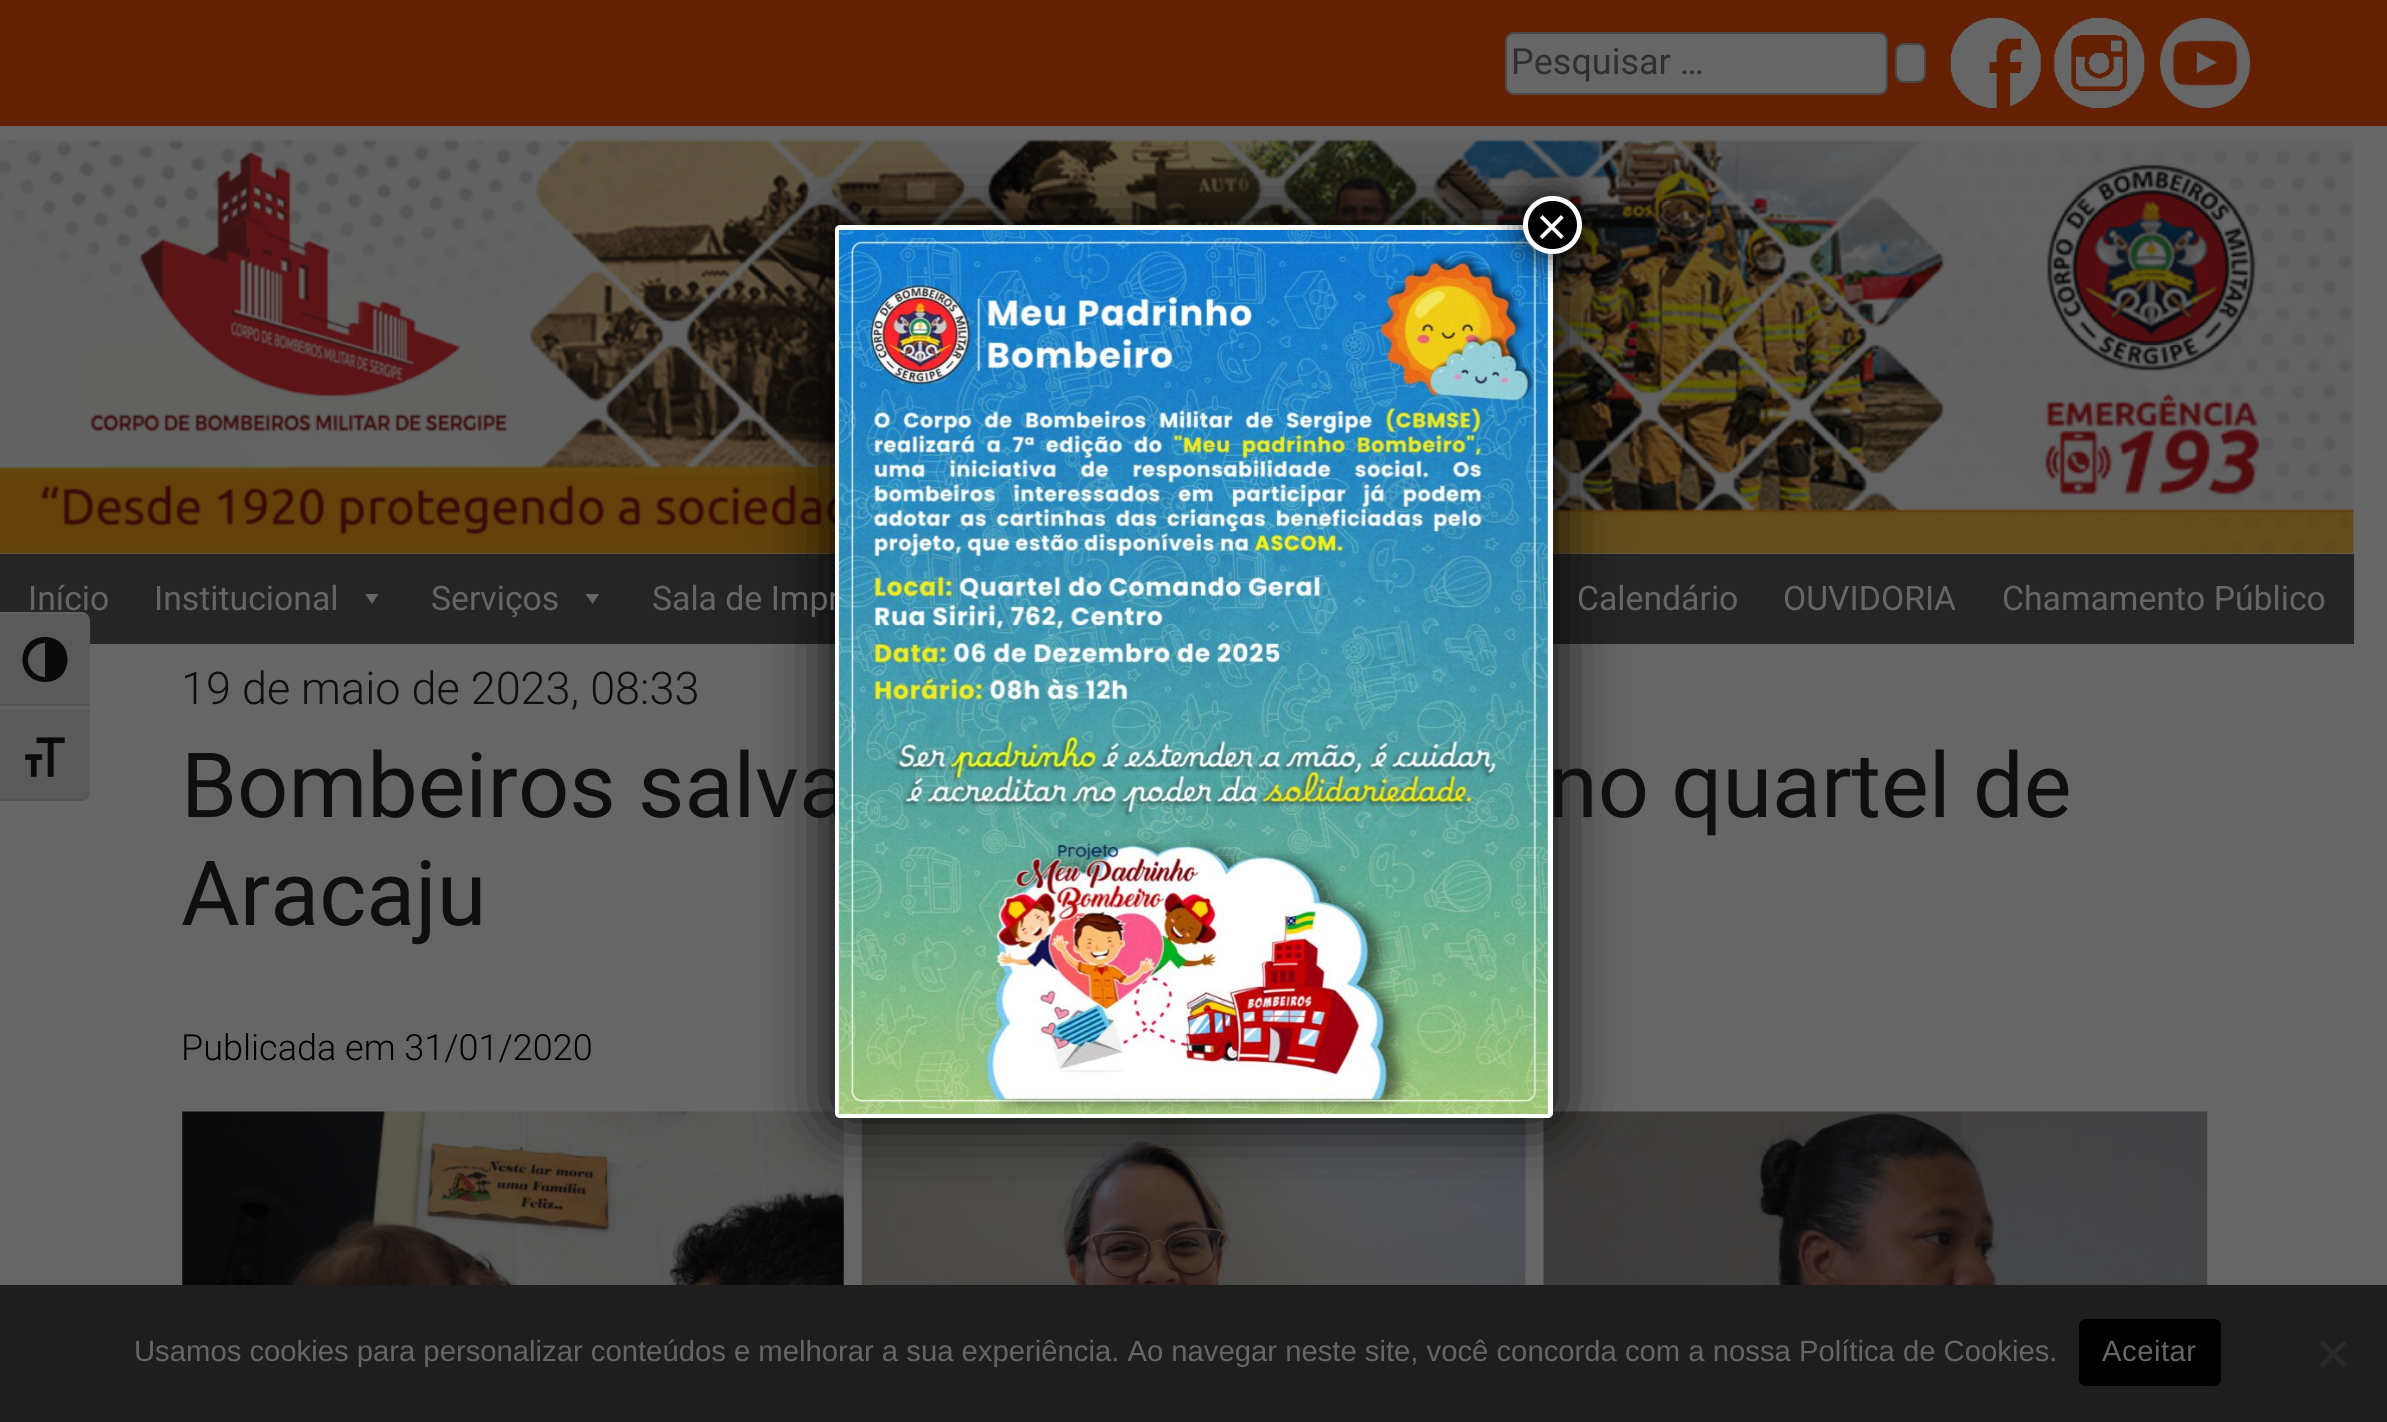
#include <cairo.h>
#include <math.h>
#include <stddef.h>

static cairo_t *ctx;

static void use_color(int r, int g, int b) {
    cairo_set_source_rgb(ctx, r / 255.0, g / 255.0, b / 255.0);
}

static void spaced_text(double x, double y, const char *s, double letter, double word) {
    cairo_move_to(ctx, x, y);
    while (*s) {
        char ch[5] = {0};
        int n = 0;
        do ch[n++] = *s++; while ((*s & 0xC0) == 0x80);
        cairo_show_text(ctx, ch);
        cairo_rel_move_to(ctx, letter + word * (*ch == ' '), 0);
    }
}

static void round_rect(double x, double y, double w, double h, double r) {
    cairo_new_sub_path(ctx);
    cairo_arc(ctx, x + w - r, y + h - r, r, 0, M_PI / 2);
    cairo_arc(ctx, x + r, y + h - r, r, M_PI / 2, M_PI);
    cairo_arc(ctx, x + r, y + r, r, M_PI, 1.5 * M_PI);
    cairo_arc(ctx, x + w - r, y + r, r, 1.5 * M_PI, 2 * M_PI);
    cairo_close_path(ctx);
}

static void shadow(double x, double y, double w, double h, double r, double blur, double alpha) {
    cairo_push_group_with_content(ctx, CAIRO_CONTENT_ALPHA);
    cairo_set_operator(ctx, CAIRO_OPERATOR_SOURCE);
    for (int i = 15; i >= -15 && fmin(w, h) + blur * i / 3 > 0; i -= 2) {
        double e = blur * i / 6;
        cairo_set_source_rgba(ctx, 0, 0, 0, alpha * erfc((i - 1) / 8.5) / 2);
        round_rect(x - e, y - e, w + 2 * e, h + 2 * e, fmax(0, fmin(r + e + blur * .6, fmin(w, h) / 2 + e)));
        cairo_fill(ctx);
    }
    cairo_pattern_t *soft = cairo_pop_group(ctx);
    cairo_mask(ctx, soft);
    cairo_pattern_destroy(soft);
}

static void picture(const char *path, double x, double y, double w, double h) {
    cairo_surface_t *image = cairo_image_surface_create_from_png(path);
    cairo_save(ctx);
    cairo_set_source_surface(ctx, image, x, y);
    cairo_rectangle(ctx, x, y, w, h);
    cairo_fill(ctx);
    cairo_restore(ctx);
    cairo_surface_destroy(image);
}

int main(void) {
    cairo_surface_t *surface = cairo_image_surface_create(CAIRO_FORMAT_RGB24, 2387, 1422);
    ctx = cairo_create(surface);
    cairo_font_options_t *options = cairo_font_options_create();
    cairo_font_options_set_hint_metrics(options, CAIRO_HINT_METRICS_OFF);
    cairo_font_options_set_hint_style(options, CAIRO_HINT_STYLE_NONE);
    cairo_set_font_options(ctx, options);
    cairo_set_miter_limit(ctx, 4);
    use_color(102, 102, 102);
    cairo_paint(ctx);
    use_color(100, 32, 2);
    cairo_rectangle(ctx, 0, 0, 2387, 126);
    cairo_fill(ctx);
    use_color(102, 102, 102);
    round_rect(1505, 32, 383, 63, 9);
    cairo_fill(ctx);
    round_rect(1506, 33, 381, 61, 8);
    cairo_set_source_rgba(ctx, 0, 0, 0, 0.3);
    cairo_stroke(ctx);
    cairo_select_font_face(ctx, "Roboto", CAIRO_FONT_SLANT_NORMAL, CAIRO_FONT_WEIGHT_NORMAL);
    cairo_set_font_size(ctx, 36);
    use_color(47, 47, 47);
    cairo_move_to(ctx, 1511, 74);
    cairo_show_text(ctx, "Pesquisar …");
    use_color(102, 102, 102);
    round_rect(1895, 43, 31, 40, 9);
    cairo_fill(ctx);
    round_rect(1896, 44, 29, 38, 8);
    cairo_set_source_rgba(ctx, 0, 0, 0, 0.3);
    cairo_stroke(ctx);
    picture("img1.png", 1950, 18, 91, 90);
    picture("img2.png", 2054, 18, 91, 90);
    picture("img3.png", 2160, 18, 90, 90);
    picture("img4.png", 0, 139, 2354, 415);
    use_color(37, 37, 37);
    cairo_rectangle(ctx, 0, 554, 2354, 90);
    cairo_fill(ctx);
    picture("img7.png", 182, 1111, 662, 174);
    picture("img8.png", 861, 1118, 665, 167);
    picture("img9.png", 1543, 1111, 665, 174);
    use_color(2, 2, 2);
    shadow(835, 225, 718, 893, 5, 34, 1);
    cairo_set_font_size(ctx, 33.75);
    use_color(102, 102, 102);
    cairo_move_to(ctx, 652, 610);
    cairo_show_text(ctx, "Sala de Impr");
    cairo_set_font_size(ctx, 90);
    use_color(13, 15, 16);
    cairo_move_to(ctx, 181, 817);
    cairo_show_text(ctx, "Bombeiros salva");
    use_color(255, 255, 255);
    round_rect(835, 225, 718, 893, 5);
    cairo_fill(ctx);
    picture("img5.png", 839, 230, 709, 884);
    use_color(2, 2, 2);
    shadow(1521, 194, 63, 63, 31.5, 17, 0.75);
    use_color(0, 0, 0);
    round_rect(1525.5, 198.5, 54, 53, 26.5);
    cairo_fill_preserve(ctx);
    use_color(255, 255, 255);
    cairo_set_line_width(ctx, 5);
    cairo_stroke(ctx);
    cairo_select_font_face(ctx, "Liberation Sans", CAIRO_FONT_SLANT_NORMAL, CAIRO_FONT_WEIGHT_NORMAL);
    cairo_set_font_size(ctx, 54);
    cairo_move_to(ctx, 1536, 245);
    cairo_show_text(ctx, "×");
    cairo_select_font_face(ctx, "Roboto", CAIRO_FONT_SLANT_NORMAL, CAIRO_FONT_WEIGHT_NORMAL);
    cairo_set_font_size(ctx, 33.75);
    use_color(102, 102, 102);
    cairo_move_to(ctx, 28, 610);
    cairo_show_text(ctx, "Início");
    cairo_move_to(ctx, 154, 610);
    cairo_show_text(ctx, "Institucional");
    cairo_new_path(ctx);
    cairo_move_to(ctx, 378.5, 594);
    cairo_line_to(ctx, 372, 604);
    cairo_line_to(ctx, 365, 594);
    cairo_close_path(ctx);
    cairo_fill(ctx);
    cairo_move_to(ctx, 431, 610);
    cairo_show_text(ctx, "Serviços");
    cairo_new_path(ctx);
    cairo_move_to(ctx, 599, 594);
    cairo_line_to(ctx, 592.5, 604);
    cairo_line_to(ctx, 585.5, 594);
    cairo_close_path(ctx);
    cairo_fill(ctx);
    cairo_move_to(ctx, 1577, 610);
    cairo_show_text(ctx, "Calendário");
    cairo_move_to(ctx, 1783, 610);
    cairo_show_text(ctx, "OUVIDORIA");
    cairo_move_to(ctx, 2002, 610);
    cairo_show_text(ctx, "Chamamento Público");
    use_color(90, 90, 90);
    cairo_new_path(ctx);
    cairo_move_to(ctx, 0, 612);
    cairo_line_to(ctx, 81, 612);
    cairo_curve_to(ctx, 86, 612, 90, 616, 90, 621);
    cairo_line_to(ctx, 90, 707);
    cairo_line_to(ctx, 0, 707);
    cairo_close_path(ctx);
    cairo_fill(ctx);
    use_color(98, 98, 98);
    cairo_new_path(ctx);
    cairo_move_to(ctx, 0, 612);
    cairo_line_to(ctx, 0, 614);
    cairo_line_to(ctx, 81, 614);
    cairo_curve_to(ctx, 86, 614, 90, 617, 90, 621);
    cairo_curve_to(ctx, 90, 616, 86, 612, 81, 612);
    cairo_close_path(ctx);
    cairo_fill(ctx);
    use_color(84, 84, 84);
    cairo_rectangle(ctx, 0, 704, 90, 2);
    cairo_fill(ctx);
    use_color(10, 10, 10);
    cairo_new_path(ctx);
    cairo_move_to(ctx, 45, 637);
    cairo_curve_to(ctx, 15, 637, 15, 682, 45, 682);
    cairo_curve_to(ctx, 75, 682, 75, 637, 45, 637);
    cairo_close_path(ctx);
    cairo_move_to(ctx, 28, 660);
    cairo_curve_to(ctx, 28, 651, 36, 643, 45, 643);
    cairo_line_to(ctx, 45, 677);
    cairo_curve_to(ctx, 36, 677, 28, 669, 28, 660);
    cairo_close_path(ctx);
    cairo_fill(ctx);
    use_color(90, 90, 90);
    cairo_new_path(ctx);
    cairo_move_to(ctx, 0, 707);
    cairo_line_to(ctx, 90, 707);
    cairo_line_to(ctx, 90, 792);
    cairo_curve_to(ctx, 90, 797, 86, 801, 81, 801);
    cairo_line_to(ctx, 0, 801);
    cairo_close_path(ctx);
    cairo_fill(ctx);
    use_color(98, 98, 98);
    cairo_rectangle(ctx, 0, 706, 90, 3);
    cairo_fill(ctx);
    use_color(84, 84, 84);
    cairo_new_path(ctx);
    cairo_move_to(ctx, 0, 799);
    cairo_line_to(ctx, 0, 801);
    cairo_line_to(ctx, 81, 801);
    cairo_curve_to(ctx, 86, 801, 90, 797, 90, 792);
    cairo_curve_to(ctx, 90, 796, 86, 799, 81, 799);
    cairo_close_path(ctx);
    cairo_fill(ctx);
    picture("img6.png", 25, 737, 40, 40);
    cairo_select_font_face(ctx, "Roboto Light", CAIRO_FONT_SLANT_NORMAL, CAIRO_FONT_WEIGHT_NORMAL);
    cairo_set_font_size(ctx, 45);
    use_color(13, 15, 16);
    cairo_move_to(ctx, 181, 704);
    cairo_show_text(ctx, "19 de maio de 2023, 08:33");
    cairo_select_font_face(ctx, "Roboto", CAIRO_FONT_SLANT_NORMAL, CAIRO_FONT_WEIGHT_NORMAL);
    cairo_set_font_size(ctx, 90);
    cairo_move_to(ctx, 1548, 817);
    cairo_show_text(ctx, "no quartel de");
    cairo_move_to(ctx, 181, 925);
    cairo_show_text(ctx, "Aracaju");
    cairo_select_font_face(ctx, "Roboto Light", CAIRO_FONT_SLANT_NORMAL, CAIRO_FONT_WEIGHT_NORMAL);
    cairo_set_font_size(ctx, 36);
    use_color(0, 0, 0);
    cairo_move_to(ctx, 181, 1060);
    cairo_show_text(ctx, "Publicada em 31/01/2020");
    use_color(30, 30, 30);
    cairo_rectangle(ctx, 0, 1285, 2387, 137);
    cairo_fill(ctx);
    cairo_select_font_face(ctx, "Liberation Sans", CAIRO_FONT_SLANT_NORMAL, CAIRO_FONT_WEIGHT_NORMAL);
    cairo_set_font_size(ctx, 29.25);
    use_color(102, 102, 102);
    cairo_move_to(ctx, 134, 1361);
    cairo_show_text(ctx, "Usamos cookies para personalizar conteúdos e melhorar a sua experiência. Ao navegar neste site, você concorda com a nossa Política de Cookies.");
    use_color(0, 0, 0);
    round_rect(2079, 1319, 142, 67, 7);
    cairo_fill(ctx);
    use_color(102, 102, 102);
    spaced_text(2102, 1361, "Aceitar", 0.5, 0);
    use_color(41, 41, 41);
    cairo_new_path(ctx);
    cairo_move_to(ctx, 2343.5, 1340.5);
    cairo_line_to(ctx, 2347, 1343.5);
    cairo_line_to(ctx, 2323, 1367.5);
    cairo_line_to(ctx, 2319.5, 1364.5);
    cairo_close_path(ctx);
    cairo_fill(ctx);
    cairo_new_path(ctx);
    cairo_move_to(ctx, 2319.5, 1343.5);
    cairo_line_to(ctx, 2323, 1340.5);
    cairo_line_to(ctx, 2347, 1364.5);
    cairo_line_to(ctx, 2343.5, 1367.5);
    cairo_close_path(ctx);
    cairo_fill(ctx);
    cairo_surface_write_to_png(surface, "result.png");
    cairo_font_options_destroy(options);
    cairo_destroy(ctx);
    cairo_surface_destroy(surface);
    return 0;
}
